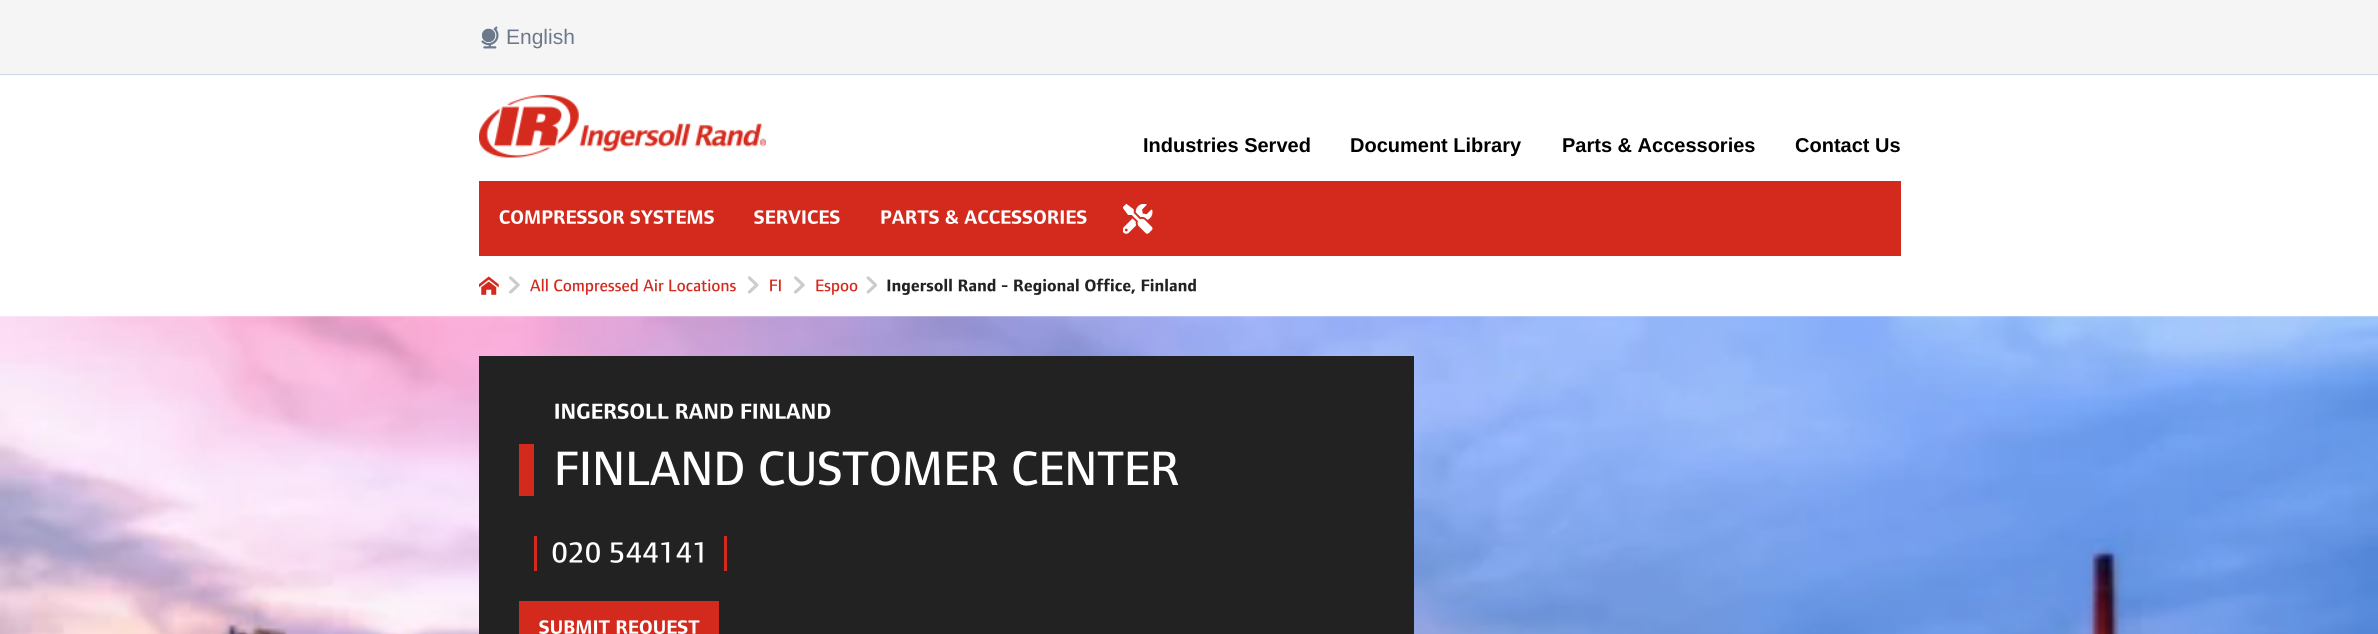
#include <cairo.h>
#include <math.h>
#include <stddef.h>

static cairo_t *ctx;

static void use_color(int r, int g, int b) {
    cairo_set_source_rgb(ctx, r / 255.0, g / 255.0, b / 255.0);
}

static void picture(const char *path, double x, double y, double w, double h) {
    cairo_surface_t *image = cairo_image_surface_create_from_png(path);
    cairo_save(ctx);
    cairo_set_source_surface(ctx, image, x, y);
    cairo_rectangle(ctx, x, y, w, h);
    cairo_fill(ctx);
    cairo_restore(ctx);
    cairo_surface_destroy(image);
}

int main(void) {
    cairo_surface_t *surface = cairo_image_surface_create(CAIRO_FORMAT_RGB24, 2378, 634);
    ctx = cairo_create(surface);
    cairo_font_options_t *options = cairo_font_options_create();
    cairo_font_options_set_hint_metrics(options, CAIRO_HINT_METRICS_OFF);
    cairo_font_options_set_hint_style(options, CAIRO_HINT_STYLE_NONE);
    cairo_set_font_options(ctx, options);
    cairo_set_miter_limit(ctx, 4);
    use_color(255, 255, 255);
    cairo_paint(ctx);
    use_color(245, 245, 245);
    cairo_rectangle(ctx, 0, 0, 2378, 74);
    cairo_fill(ctx);
    use_color(203, 214, 226);
    cairo_rectangle(ctx, 0, 74, 2378, 1);
    cairo_fill(ctx);
    picture("img1.png", 481, 26, 18, 23);
    cairo_select_font_face(ctx, "Liberation Sans", CAIRO_FONT_SLANT_NORMAL, CAIRO_FONT_WEIGHT_NORMAL);
    cairo_set_font_size(ctx, 21);
    use_color(108, 121, 139);
    cairo_move_to(ctx, 506, 44);
    cairo_show_text(ctx, "English");
    picture("img2.png", 479, 94, 287, 64);
    cairo_select_font_face(ctx, "Liberation Sans", CAIRO_FONT_SLANT_NORMAL, CAIRO_FONT_WEIGHT_BOLD);
    cairo_set_font_size(ctx, 20);
    use_color(0, 0, 0);
    cairo_move_to(ctx, 1143, 152);
    cairo_show_text(ctx, "Industries Served");
    cairo_move_to(ctx, 1350, 152);
    cairo_show_text(ctx, "Document Library");
    cairo_move_to(ctx, 1562, 152);
    cairo_show_text(ctx, "Parts & Accessories");
    cairo_move_to(ctx, 1795, 152);
    cairo_show_text(ctx, "Contact Us");
    use_color(212, 42, 29);
    cairo_rectangle(ctx, 479, 181, 1422, 75);
    cairo_fill(ctx);
    picture("img3.png", 499, 210, 215, 14);
    picture("img4.png", 754, 210, 86, 14);
    picture("img5.png", 881, 210, 206, 14);
    picture("img6.png", 1123, 204, 30, 30);
    picture("img7.png", 479, 276, 20, 19);
    picture("img8.png", 509, 276, 11, 18);
    picture("img9.png", 530, 278, 206, 17);
    picture("img10.png", 748, 276, 11, 18);
    picture("img11.png", 770, 279, 11, 13);
    picture("img12.png", 794, 276, 11, 18);
    picture("img13.png", 816, 279, 42, 16);
    picture("img14.png", 866, 276, 11, 18);
    picture("img15.png", 887, 278, 309, 17);
    picture("img16.png", 0, 316, 2378, 318);
    use_color(34, 34, 34);
    cairo_rectangle(ctx, 479, 356, 935, 278);
    cairo_fill(ctx);
    picture("img17.png", 555, 403, 276, 16);
    use_color(212, 42, 29);
    cairo_rectangle(ctx, 519, 444, 15, 52);
    cairo_fill(ctx);
    picture("img18.png", 557, 451, 622, 35);
    cairo_rectangle(ctx, 534, 536, 3, 35);
    cairo_fill(ctx);
    cairo_rectangle(ctx, 724, 536, 3, 35);
    cairo_fill(ctx);
    picture("img19.png", 552, 542, 151, 21);
    cairo_rectangle(ctx, 519, 601, 200, 33);
    cairo_fill(ctx);
    picture("img20.png", 539, 620, 161, 14);
    cairo_surface_write_to_png(surface, "result.png");
    cairo_font_options_destroy(options);
    cairo_destroy(ctx);
    cairo_surface_destroy(surface);
    return 0;
}
